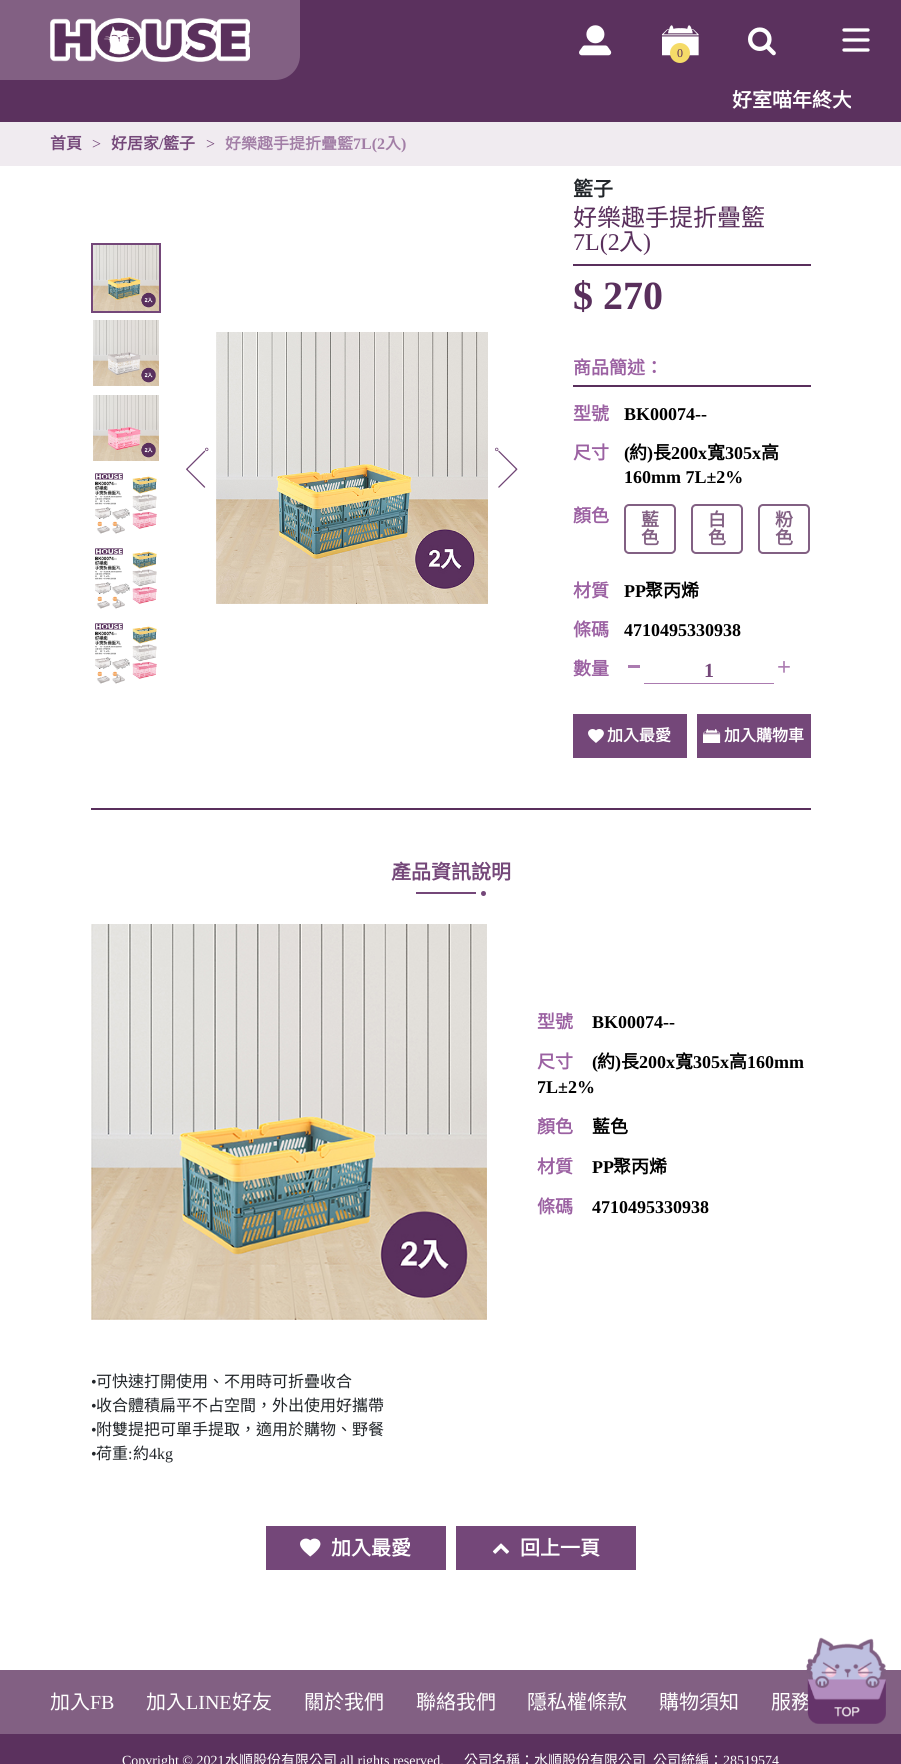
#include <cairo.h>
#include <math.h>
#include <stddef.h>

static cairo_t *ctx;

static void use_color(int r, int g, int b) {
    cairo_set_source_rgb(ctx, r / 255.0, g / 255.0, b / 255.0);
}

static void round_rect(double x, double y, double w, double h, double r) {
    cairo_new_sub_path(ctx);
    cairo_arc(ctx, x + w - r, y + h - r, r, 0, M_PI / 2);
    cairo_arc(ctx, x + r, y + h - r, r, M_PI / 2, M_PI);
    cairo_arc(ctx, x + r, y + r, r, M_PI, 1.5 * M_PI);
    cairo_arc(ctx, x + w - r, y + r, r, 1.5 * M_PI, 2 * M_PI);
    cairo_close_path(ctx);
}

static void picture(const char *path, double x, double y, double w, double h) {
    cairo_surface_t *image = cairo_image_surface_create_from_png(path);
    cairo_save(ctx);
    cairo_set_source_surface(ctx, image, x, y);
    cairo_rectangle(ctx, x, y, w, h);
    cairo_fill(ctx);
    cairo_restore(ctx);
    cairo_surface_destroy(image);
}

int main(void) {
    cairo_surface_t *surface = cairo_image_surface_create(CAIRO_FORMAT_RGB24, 901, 1764);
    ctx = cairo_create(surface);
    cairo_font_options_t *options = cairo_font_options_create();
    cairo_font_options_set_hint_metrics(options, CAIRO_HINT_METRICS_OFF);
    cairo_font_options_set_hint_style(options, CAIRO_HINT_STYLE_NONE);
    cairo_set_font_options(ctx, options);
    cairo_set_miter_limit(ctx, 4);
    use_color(255, 255, 255);
    cairo_paint(ctx);
    use_color(91, 49, 94);
    cairo_rectangle(ctx, 275, 0, 626, 80);
    cairo_fill(ctx);
    use_color(130, 96, 131);
    cairo_new_path(ctx);
    cairo_move_to(ctx, 0, 0);
    cairo_line_to(ctx, 300, 0);
    cairo_line_to(ctx, 300, 55);
    cairo_curve_to(ctx, 300, 69, 289, 80, 275, 80);
    cairo_line_to(ctx, 0, 80);
    cairo_close_path(ctx);
    cairo_fill(ctx);
    picture("img1.png", 50, 18, 200, 44);
    cairo_new_path(ctx);
    cairo_move_to(ctx, 844, 30);
    cairo_line_to(ctx, 868, 30);
    cairo_move_to(ctx, 844, 40);
    cairo_line_to(ctx, 868, 40);
    cairo_move_to(ctx, 844, 50);
    cairo_line_to(ctx, 868, 50);
    use_color(255, 255, 255);
    cairo_set_line_width(ctx, 3.3);
    cairo_set_line_cap(ctx, CAIRO_LINE_CAP_ROUND);
    cairo_stroke(ctx);
    picture("img2.png", 579, 25, 33, 31);
    picture("img3.png", 662, 25, 37, 31);
    use_color(245, 219, 104);
    cairo_arc(ctx, 680, 53, 10, 0, 2 * M_PI);
    cairo_fill(ctx);
    cairo_select_font_face(ctx, "Liberation Serif", CAIRO_FONT_SLANT_NORMAL, CAIRO_FONT_WEIGHT_NORMAL);
    cairo_set_font_size(ctx, 12);
    use_color(89, 47, 92);
    cairo_move_to(ctx, 677, 57);
    cairo_show_text(ctx, "0");
    picture("img4.png", 748, 27, 28, 29);
    use_color(91, 49, 94);
    cairo_rectangle(ctx, 0, 80, 901, 42);
    cairo_fill(ctx);
    cairo_save(ctx);
    cairo_rectangle(ctx, 50, 90, 801, 20);
    cairo_clip(ctx);
    cairo_select_font_face(ctx, "Noto Sans CJK TC", CAIRO_FONT_SLANT_NORMAL, CAIRO_FONT_WEIGHT_BOLD);
    cairo_set_font_size(ctx, 20);
    use_color(255, 255, 255);
    cairo_move_to(ctx, 732, 107);
    cairo_show_text(ctx, "好室喵年終大");
    cairo_restore(ctx);
    use_color(240, 235, 240);
    cairo_rectangle(ctx, 0, 122, 901, 44);
    cairo_fill(ctx);
    cairo_select_font_face(ctx, "Noto Sans CJK TC", CAIRO_FONT_SLANT_NORMAL, CAIRO_FONT_WEIGHT_BOLD);
    cairo_set_font_size(ctx, 16);
    use_color(116, 71, 121);
    cairo_move_to(ctx, 50, 149);
    cairo_show_text(ctx, "首頁");
    cairo_select_font_face(ctx, "Liberation Serif", CAIRO_FONT_SLANT_NORMAL, CAIRO_FONT_WEIGHT_NORMAL);
    cairo_move_to(ctx, 92, 149);
    cairo_show_text(ctx, ">");
    cairo_select_font_face(ctx, "Noto Sans CJK TC", CAIRO_FONT_SLANT_NORMAL, CAIRO_FONT_WEIGHT_BOLD);
    cairo_move_to(ctx, 111, 149);
    cairo_show_text(ctx, "好居家");
    cairo_select_font_face(ctx, "Liberation Serif", CAIRO_FONT_SLANT_NORMAL, CAIRO_FONT_WEIGHT_BOLD);
    cairo_move_to(ctx, 159, 149);
    cairo_show_text(ctx, "/");
    cairo_select_font_face(ctx, "Noto Sans CJK TC", CAIRO_FONT_SLANT_NORMAL, CAIRO_FONT_WEIGHT_BOLD);
    cairo_move_to(ctx, 163, 149);
    cairo_show_text(ctx, "籃子");
    cairo_select_font_face(ctx, "Liberation Serif", CAIRO_FONT_SLANT_NORMAL, CAIRO_FONT_WEIGHT_NORMAL);
    cairo_move_to(ctx, 206, 149);
    cairo_show_text(ctx, ">");
    cairo_save(ctx);
    cairo_rectangle(ctx, 225, 136, 181, 16);
    cairo_clip(ctx);
    cairo_select_font_face(ctx, "Noto Sans CJK TC", CAIRO_FONT_SLANT_NORMAL, CAIRO_FONT_WEIGHT_BOLD);
    use_color(162, 126, 166);
    cairo_move_to(ctx, 225, 149);
    cairo_show_text(ctx, "好樂趣手提折疊籃");
    cairo_restore(ctx);
    cairo_select_font_face(ctx, "Liberation Serif", CAIRO_FONT_SLANT_NORMAL, CAIRO_FONT_WEIGHT_BOLD);
    use_color(162, 126, 166);
    cairo_move_to(ctx, 353, 149);
    cairo_show_text(ctx, "7L(2");
    cairo_select_font_face(ctx, "Noto Sans CJK TC", CAIRO_FONT_SLANT_NORMAL, CAIRO_FONT_WEIGHT_BOLD);
    cairo_move_to(ctx, 385, 149);
    cairo_show_text(ctx, "入");
    cairo_select_font_face(ctx, "Liberation Serif", CAIRO_FONT_SLANT_NORMAL, CAIRO_FONT_WEIGHT_BOLD);
    cairo_move_to(ctx, 401, 149);
    cairo_show_text(ctx, ")");
    use_color(89, 47, 92);
    cairo_rectangle(ctx, 91, 808, 720, 2);
    cairo_fill(ctx);
    cairo_rectangle(ctx, 92, 244, 68, 68);
    use_color(116, 71, 121);
    cairo_set_line_width(ctx, 2);
    cairo_set_line_cap(ctx, CAIRO_LINE_CAP_BUTT);
    cairo_stroke(ctx);
    picture("img5.png", 93, 245, 66, 66);
    picture("img6.png", 93, 320, 66, 66);
    picture("img7.png", 93, 395, 66, 66);
    picture("img8.png", 95, 473, 62, 61);
    picture("img8.png", 95, 548, 62, 61);
    picture("img8.png", 95, 623, 62, 61);
    picture("img9.png", 186, 447, 23, 41);
    picture("img10.png", 216, 332, 272, 272);
    picture("img11.png", 495, 447, 23, 41);
    cairo_select_font_face(ctx, "Noto Sans CJK TC", CAIRO_FONT_SLANT_NORMAL, CAIRO_FONT_WEIGHT_BOLD);
    cairo_set_font_size(ctx, 20);
    use_color(33, 37, 41);
    cairo_move_to(ctx, 573, 196);
    cairo_show_text(ctx, "籃子");
    use_color(89, 47, 92);
    cairo_rectangle(ctx, 573, 264, 238, 2);
    cairo_fill(ctx);
    cairo_select_font_face(ctx, "Noto Sans CJK TC", CAIRO_FONT_SLANT_NORMAL, CAIRO_FONT_WEIGHT_NORMAL);
    cairo_set_font_size(ctx, 24);
    cairo_move_to(ctx, 573, 226);
    cairo_show_text(ctx, "好樂趣手提折疊籃");
    cairo_select_font_face(ctx, "Liberation Serif", CAIRO_FONT_SLANT_NORMAL, CAIRO_FONT_WEIGHT_NORMAL);
    cairo_move_to(ctx, 573, 250);
    cairo_show_text(ctx, "7L(2");
    cairo_select_font_face(ctx, "Noto Sans CJK TC", CAIRO_FONT_SLANT_NORMAL, CAIRO_FONT_WEIGHT_NORMAL);
    cairo_move_to(ctx, 619, 250);
    cairo_show_text(ctx, "入");
    cairo_select_font_face(ctx, "Liberation Serif", CAIRO_FONT_SLANT_NORMAL, CAIRO_FONT_WEIGHT_NORMAL);
    cairo_move_to(ctx, 643, 250);
    cairo_show_text(ctx, ")");
    cairo_select_font_face(ctx, "Liberation Serif", CAIRO_FONT_SLANT_NORMAL, CAIRO_FONT_WEIGHT_BOLD);
    cairo_set_font_size(ctx, 40);
    cairo_move_to(ctx, 573, 309);
    cairo_show_text(ctx, "$ 270");
    cairo_rectangle(ctx, 573, 385, 238, 2);
    cairo_fill(ctx);
    cairo_select_font_face(ctx, "Noto Sans CJK TC", CAIRO_FONT_SLANT_NORMAL, CAIRO_FONT_WEIGHT_BOLD);
    cairo_set_font_size(ctx, 18);
    use_color(155, 97, 162);
    cairo_move_to(ctx, 573, 374);
    cairo_show_text(ctx, "商品簡述：");
    cairo_move_to(ctx, 573, 420);
    cairo_show_text(ctx, "型號");
    cairo_select_font_face(ctx, "Liberation Serif", CAIRO_FONT_SLANT_NORMAL, CAIRO_FONT_WEIGHT_BOLD);
    use_color(0, 0, 0);
    cairo_move_to(ctx, 624, 420);
    cairo_show_text(ctx, "BK00074--");
    cairo_select_font_face(ctx, "Noto Sans CJK TC", CAIRO_FONT_SLANT_NORMAL, CAIRO_FONT_WEIGHT_BOLD);
    use_color(155, 97, 162);
    cairo_move_to(ctx, 573, 459);
    cairo_show_text(ctx, "尺寸");
    cairo_select_font_face(ctx, "Liberation Serif", CAIRO_FONT_SLANT_NORMAL, CAIRO_FONT_WEIGHT_BOLD);
    use_color(0, 0, 0);
    cairo_move_to(ctx, 624, 459);
    cairo_show_text(ctx, "(");
    cairo_select_font_face(ctx, "Noto Sans CJK TC", CAIRO_FONT_SLANT_NORMAL, CAIRO_FONT_WEIGHT_BOLD);
    cairo_move_to(ctx, 629, 459);
    cairo_show_text(ctx, "約");
    cairo_select_font_face(ctx, "Liberation Serif", CAIRO_FONT_SLANT_NORMAL, CAIRO_FONT_WEIGHT_BOLD);
    cairo_move_to(ctx, 647, 459);
    cairo_show_text(ctx, ")");
    cairo_select_font_face(ctx, "Noto Sans CJK TC", CAIRO_FONT_SLANT_NORMAL, CAIRO_FONT_WEIGHT_BOLD);
    cairo_move_to(ctx, 653, 459);
    cairo_show_text(ctx, "長");
    cairo_select_font_face(ctx, "Liberation Serif", CAIRO_FONT_SLANT_NORMAL, CAIRO_FONT_WEIGHT_BOLD);
    cairo_move_to(ctx, 671, 459);
    cairo_show_text(ctx, "200x");
    cairo_select_font_face(ctx, "Noto Sans CJK TC", CAIRO_FONT_SLANT_NORMAL, CAIRO_FONT_WEIGHT_BOLD);
    cairo_move_to(ctx, 707, 459);
    cairo_show_text(ctx, "寬");
    cairo_select_font_face(ctx, "Liberation Serif", CAIRO_FONT_SLANT_NORMAL, CAIRO_FONT_WEIGHT_BOLD);
    cairo_move_to(ctx, 725, 459);
    cairo_show_text(ctx, "305x");
    cairo_select_font_face(ctx, "Noto Sans CJK TC", CAIRO_FONT_SLANT_NORMAL, CAIRO_FONT_WEIGHT_BOLD);
    cairo_move_to(ctx, 761, 459);
    cairo_show_text(ctx, "高");
    cairo_select_font_face(ctx, "Liberation Serif", CAIRO_FONT_SLANT_NORMAL, CAIRO_FONT_WEIGHT_BOLD);
    cairo_move_to(ctx, 624, 483);
    cairo_show_text(ctx, "160mm 7L±2%");
    cairo_select_font_face(ctx, "Noto Sans CJK TC", CAIRO_FONT_SLANT_NORMAL, CAIRO_FONT_WEIGHT_BOLD);
    use_color(155, 97, 162);
    cairo_move_to(ctx, 573, 522);
    cairo_show_text(ctx, "顏色");
    round_rect(625, 505, 50, 48, 4);
    use_color(130, 96, 131);
    cairo_stroke(ctx);
    cairo_move_to(ctx, 641, 526);
    cairo_show_text(ctx, "藍");
    cairo_move_to(ctx, 641, 544);
    cairo_show_text(ctx, "色");
    round_rect(692, 505, 50, 48, 4);
    cairo_stroke(ctx);
    cairo_move_to(ctx, 708, 526);
    cairo_show_text(ctx, "白");
    cairo_move_to(ctx, 708, 544);
    cairo_show_text(ctx, "色");
    round_rect(759, 505, 50, 48, 4);
    cairo_stroke(ctx);
    cairo_move_to(ctx, 775, 526);
    cairo_show_text(ctx, "粉");
    cairo_move_to(ctx, 775, 544);
    cairo_show_text(ctx, "色");
    use_color(155, 97, 162);
    cairo_move_to(ctx, 573, 597);
    cairo_show_text(ctx, "材質");
    cairo_select_font_face(ctx, "Liberation Serif", CAIRO_FONT_SLANT_NORMAL, CAIRO_FONT_WEIGHT_BOLD);
    use_color(0, 0, 0);
    cairo_move_to(ctx, 624, 597);
    cairo_show_text(ctx, "PP");
    cairo_select_font_face(ctx, "Noto Sans CJK TC", CAIRO_FONT_SLANT_NORMAL, CAIRO_FONT_WEIGHT_BOLD);
    cairo_move_to(ctx, 645, 597);
    cairo_show_text(ctx, "聚丙烯");
    use_color(155, 97, 162);
    cairo_move_to(ctx, 573, 636);
    cairo_show_text(ctx, "條碼");
    cairo_select_font_face(ctx, "Liberation Serif", CAIRO_FONT_SLANT_NORMAL, CAIRO_FONT_WEIGHT_BOLD);
    use_color(0, 0, 0);
    cairo_move_to(ctx, 624, 636);
    cairo_show_text(ctx, "4710495330938");
    cairo_select_font_face(ctx, "Noto Sans CJK TC", CAIRO_FONT_SLANT_NORMAL, CAIRO_FONT_WEIGHT_BOLD);
    use_color(155, 97, 162);
    cairo_move_to(ctx, 573, 675);
    cairo_show_text(ctx, "數量");
    use_color(171, 123, 176);
    cairo_rectangle(ctx, 628, 665, 12, 3);
    cairo_fill(ctx);
    cairo_rectangle(ctx, 644, 683, 130, 1);
    cairo_fill(ctx);
    cairo_select_font_face(ctx, "Liberation Serif", CAIRO_FONT_SLANT_NORMAL, CAIRO_FONT_WEIGHT_BOLD);
    cairo_set_font_size(ctx, 20);
    use_color(116, 71, 121);
    cairo_move_to(ctx, 704, 677);
    cairo_show_text(ctx, "1");
    picture("img12.png", 778, 661, 12, 12);
    cairo_rectangle(ctx, 573, 714, 114, 44);
    cairo_fill(ctx);
    picture("img13.png", 588, 729, 16, 14);
    cairo_select_font_face(ctx, "Noto Sans CJK TC", CAIRO_FONT_SLANT_NORMAL, CAIRO_FONT_WEIGHT_BOLD);
    cairo_set_font_size(ctx, 16);
    use_color(255, 255, 255);
    cairo_move_to(ctx, 607, 741);
    cairo_show_text(ctx, "加入最愛");
    use_color(116, 71, 121);
    cairo_rectangle(ctx, 697, 714, 114, 44);
    cairo_fill(ctx);
    picture("img14.png", 703, 729, 18, 14);
    use_color(255, 255, 255);
    cairo_move_to(ctx, 724, 741);
    cairo_show_text(ctx, "加入購物車");
    cairo_set_font_size(ctx, 20);
    use_color(116, 71, 121);
    cairo_move_to(ctx, 391, 879);
    cairo_show_text(ctx, "產品資訊說明");
    cairo_rectangle(ctx, 416, 892, 60, 2);
    cairo_fill(ctx);
    cairo_arc(ctx, 483.5, 893.5, 2.5, 0, 2 * M_PI);
    cairo_fill(ctx);
    picture("img15.png", 91, 924, 396, 396);
    cairo_set_font_size(ctx, 18);
    use_color(155, 97, 162);
    cairo_move_to(ctx, 537, 1028);
    cairo_show_text(ctx, "型號");
    cairo_select_font_face(ctx, "Liberation Serif", CAIRO_FONT_SLANT_NORMAL, CAIRO_FONT_WEIGHT_BOLD);
    use_color(0, 0, 0);
    cairo_move_to(ctx, 592, 1028);
    cairo_show_text(ctx, "BK00074--");
    cairo_select_font_face(ctx, "Noto Sans CJK TC", CAIRO_FONT_SLANT_NORMAL, CAIRO_FONT_WEIGHT_BOLD);
    use_color(155, 97, 162);
    cairo_move_to(ctx, 537, 1068);
    cairo_show_text(ctx, "尺寸");
    cairo_select_font_face(ctx, "Liberation Serif", CAIRO_FONT_SLANT_NORMAL, CAIRO_FONT_WEIGHT_BOLD);
    use_color(0, 0, 0);
    cairo_move_to(ctx, 592, 1068);
    cairo_show_text(ctx, "(");
    cairo_select_font_face(ctx, "Noto Sans CJK TC", CAIRO_FONT_SLANT_NORMAL, CAIRO_FONT_WEIGHT_BOLD);
    cairo_move_to(ctx, 597, 1068);
    cairo_show_text(ctx, "約");
    cairo_select_font_face(ctx, "Liberation Serif", CAIRO_FONT_SLANT_NORMAL, CAIRO_FONT_WEIGHT_BOLD);
    cairo_move_to(ctx, 615, 1068);
    cairo_show_text(ctx, ")");
    cairo_select_font_face(ctx, "Noto Sans CJK TC", CAIRO_FONT_SLANT_NORMAL, CAIRO_FONT_WEIGHT_BOLD);
    cairo_move_to(ctx, 621, 1068);
    cairo_show_text(ctx, "長");
    cairo_select_font_face(ctx, "Liberation Serif", CAIRO_FONT_SLANT_NORMAL, CAIRO_FONT_WEIGHT_BOLD);
    cairo_move_to(ctx, 639, 1068);
    cairo_show_text(ctx, "200x");
    cairo_select_font_face(ctx, "Noto Sans CJK TC", CAIRO_FONT_SLANT_NORMAL, CAIRO_FONT_WEIGHT_BOLD);
    cairo_move_to(ctx, 675, 1068);
    cairo_show_text(ctx, "寬");
    cairo_select_font_face(ctx, "Liberation Serif", CAIRO_FONT_SLANT_NORMAL, CAIRO_FONT_WEIGHT_BOLD);
    cairo_move_to(ctx, 693, 1068);
    cairo_show_text(ctx, "305x");
    cairo_select_font_face(ctx, "Noto Sans CJK TC", CAIRO_FONT_SLANT_NORMAL, CAIRO_FONT_WEIGHT_BOLD);
    cairo_move_to(ctx, 729, 1068);
    cairo_show_text(ctx, "高");
    cairo_select_font_face(ctx, "Liberation Serif", CAIRO_FONT_SLANT_NORMAL, CAIRO_FONT_WEIGHT_BOLD);
    cairo_move_to(ctx, 747, 1068);
    cairo_show_text(ctx, "160mm");
    cairo_move_to(ctx, 537, 1093);
    cairo_show_text(ctx, "7L±2%");
    cairo_select_font_face(ctx, "Noto Sans CJK TC", CAIRO_FONT_SLANT_NORMAL, CAIRO_FONT_WEIGHT_BOLD);
    use_color(155, 97, 162);
    cairo_move_to(ctx, 537, 1133);
    cairo_show_text(ctx, "顏色");
    use_color(0, 0, 0);
    cairo_move_to(ctx, 592, 1133);
    cairo_show_text(ctx, "藍色");
    use_color(155, 97, 162);
    cairo_move_to(ctx, 537, 1173);
    cairo_show_text(ctx, "材質");
    cairo_select_font_face(ctx, "Liberation Serif", CAIRO_FONT_SLANT_NORMAL, CAIRO_FONT_WEIGHT_BOLD);
    use_color(0, 0, 0);
    cairo_move_to(ctx, 592, 1173);
    cairo_show_text(ctx, "PP");
    cairo_select_font_face(ctx, "Noto Sans CJK TC", CAIRO_FONT_SLANT_NORMAL, CAIRO_FONT_WEIGHT_BOLD);
    cairo_move_to(ctx, 613, 1173);
    cairo_show_text(ctx, "聚丙烯");
    use_color(155, 97, 162);
    cairo_move_to(ctx, 537, 1213);
    cairo_show_text(ctx, "條碼");
    cairo_select_font_face(ctx, "Liberation Serif", CAIRO_FONT_SLANT_NORMAL, CAIRO_FONT_WEIGHT_BOLD);
    use_color(0, 0, 0);
    cairo_move_to(ctx, 592, 1213);
    cairo_show_text(ctx, "4710495330938");
    cairo_select_font_face(ctx, "Liberation Serif", CAIRO_FONT_SLANT_NORMAL, CAIRO_FONT_WEIGHT_NORMAL);
    cairo_set_font_size(ctx, 16);
    use_color(33, 37, 41);
    cairo_move_to(ctx, 91, 1387);
    cairo_show_text(ctx, "•");
    cairo_select_font_face(ctx, "Noto Sans CJK TC", CAIRO_FONT_SLANT_NORMAL, CAIRO_FONT_WEIGHT_NORMAL);
    cairo_move_to(ctx, 96, 1387);
    cairo_show_text(ctx, "可快速打開使用、不用時可折疊收合");
    cairo_select_font_face(ctx, "Liberation Serif", CAIRO_FONT_SLANT_NORMAL, CAIRO_FONT_WEIGHT_NORMAL);
    cairo_move_to(ctx, 91, 1411);
    cairo_show_text(ctx, "•");
    cairo_select_font_face(ctx, "Noto Sans CJK TC", CAIRO_FONT_SLANT_NORMAL, CAIRO_FONT_WEIGHT_NORMAL);
    cairo_move_to(ctx, 96, 1411);
    cairo_show_text(ctx, "收合體積扁平不占空間，外出使用好攜帶");
    cairo_select_font_face(ctx, "Liberation Serif", CAIRO_FONT_SLANT_NORMAL, CAIRO_FONT_WEIGHT_NORMAL);
    cairo_move_to(ctx, 91, 1435);
    cairo_show_text(ctx, "•");
    cairo_select_font_face(ctx, "Noto Sans CJK TC", CAIRO_FONT_SLANT_NORMAL, CAIRO_FONT_WEIGHT_NORMAL);
    cairo_move_to(ctx, 96, 1435);
    cairo_show_text(ctx, "附雙提把可單手提取，適用於購物、野餐");
    cairo_select_font_face(ctx, "Liberation Serif", CAIRO_FONT_SLANT_NORMAL, CAIRO_FONT_WEIGHT_NORMAL);
    cairo_move_to(ctx, 91, 1459);
    cairo_show_text(ctx, "•");
    cairo_select_font_face(ctx, "Noto Sans CJK TC", CAIRO_FONT_SLANT_NORMAL, CAIRO_FONT_WEIGHT_NORMAL);
    cairo_move_to(ctx, 96, 1459);
    cairo_show_text(ctx, "荷重");
    cairo_select_font_face(ctx, "Liberation Serif", CAIRO_FONT_SLANT_NORMAL, CAIRO_FONT_WEIGHT_NORMAL);
    cairo_move_to(ctx, 128, 1459);
    cairo_show_text(ctx, ":");
    cairo_select_font_face(ctx, "Noto Sans CJK TC", CAIRO_FONT_SLANT_NORMAL, CAIRO_FONT_WEIGHT_NORMAL);
    cairo_move_to(ctx, 133, 1459);
    cairo_show_text(ctx, "約");
    cairo_select_font_face(ctx, "Liberation Serif", CAIRO_FONT_SLANT_NORMAL, CAIRO_FONT_WEIGHT_NORMAL);
    cairo_move_to(ctx, 149, 1459);
    cairo_show_text(ctx, "4kg");
    use_color(116, 71, 121);
    cairo_rectangle(ctx, 266, 1526, 180, 44);
    cairo_fill(ctx);
    picture("img16.png", 300, 1538, 21, 19);
    cairo_select_font_face(ctx, "Noto Sans CJK TC", CAIRO_FONT_SLANT_NORMAL, CAIRO_FONT_WEIGHT_BOLD);
    cairo_set_font_size(ctx, 20);
    use_color(255, 255, 255);
    cairo_move_to(ctx, 331, 1555);
    cairo_show_text(ctx, "加入最愛");
    use_color(116, 71, 121);
    cairo_rectangle(ctx, 456, 1526, 180, 44);
    cairo_fill(ctx);
    picture("img17.png", 492, 1543, 18, 11);
    use_color(255, 255, 255);
    cairo_move_to(ctx, 520, 1555);
    cairo_show_text(ctx, "回上一頁");
    use_color(130, 96, 131);
    cairo_rectangle(ctx, 0, 1670, 901, 64);
    cairo_fill(ctx);
    cairo_select_font_face(ctx, "Noto Sans CJK TC", CAIRO_FONT_SLANT_NORMAL, CAIRO_FONT_WEIGHT_NORMAL);
    use_color(255, 255, 255);
    cairo_move_to(ctx, 50, 1709);
    cairo_show_text(ctx, "加入");
    cairo_select_font_face(ctx, "Liberation Serif", CAIRO_FONT_SLANT_NORMAL, CAIRO_FONT_WEIGHT_NORMAL);
    cairo_move_to(ctx, 90, 1709);
    cairo_show_text(ctx, "FB");
    cairo_select_font_face(ctx, "Noto Sans CJK TC", CAIRO_FONT_SLANT_NORMAL, CAIRO_FONT_WEIGHT_NORMAL);
    cairo_move_to(ctx, 146, 1709);
    cairo_show_text(ctx, "加入");
    cairo_select_font_face(ctx, "Liberation Serif", CAIRO_FONT_SLANT_NORMAL, CAIRO_FONT_WEIGHT_NORMAL);
    cairo_move_to(ctx, 186, 1709);
    cairo_show_text(ctx, "LINE");
    cairo_select_font_face(ctx, "Noto Sans CJK TC", CAIRO_FONT_SLANT_NORMAL, CAIRO_FONT_WEIGHT_NORMAL);
    cairo_move_to(ctx, 232, 1709);
    cairo_show_text(ctx, "好友");
    cairo_move_to(ctx, 304, 1709);
    cairo_show_text(ctx, "關於我們");
    cairo_move_to(ctx, 416, 1709);
    cairo_show_text(ctx, "聯絡我們");
    cairo_move_to(ctx, 527, 1709);
    cairo_show_text(ctx, "隱私權條款");
    cairo_move_to(ctx, 659, 1709);
    cairo_show_text(ctx, "購物須知");
    cairo_move_to(ctx, 771, 1709);
    cairo_show_text(ctx, "服務");
    use_color(91, 49, 94);
    cairo_rectangle(ctx, 0, 1734, 901, 30);
    cairo_fill(ctx);
    cairo_select_font_face(ctx, "Liberation Serif", CAIRO_FONT_SLANT_NORMAL, CAIRO_FONT_WEIGHT_NORMAL);
    cairo_set_font_size(ctx, 14);
    use_color(255, 255, 255);
    cairo_move_to(ctx, 122, 1765);
    cairo_show_text(ctx, "Copyright © 2021");
    cairo_select_font_face(ctx, "Noto Sans CJK TC", CAIRO_FONT_SLANT_NORMAL, CAIRO_FONT_WEIGHT_NORMAL);
    cairo_move_to(ctx, 225, 1765);
    cairo_show_text(ctx, "水順股份有限公司");
    cairo_select_font_face(ctx, "Liberation Serif", CAIRO_FONT_SLANT_NORMAL, CAIRO_FONT_WEIGHT_NORMAL);
    cairo_move_to(ctx, 340, 1765);
    cairo_show_text(ctx, "all rights reserved.");
    cairo_select_font_face(ctx, "Noto Sans CJK TC", CAIRO_FONT_SLANT_NORMAL, CAIRO_FONT_WEIGHT_NORMAL);
    cairo_move_to(ctx, 464, 1765);
    cairo_show_text(ctx, "公司名稱：水順股份有限公司");
    cairo_move_to(ctx, 653, 1765);
    cairo_show_text(ctx, "公司統編：");
    cairo_select_font_face(ctx, "Liberation Serif", CAIRO_FONT_SLANT_NORMAL, CAIRO_FONT_WEIGHT_NORMAL);
    cairo_move_to(ctx, 723, 1765);
    cairo_show_text(ctx, "28519574");
    picture("img18.png", 806, 1637, 80, 87);
    cairo_surface_write_to_png(surface, "result.png");
    cairo_font_options_destroy(options);
    cairo_destroy(ctx);
    cairo_surface_destroy(surface);
    return 0;
}
